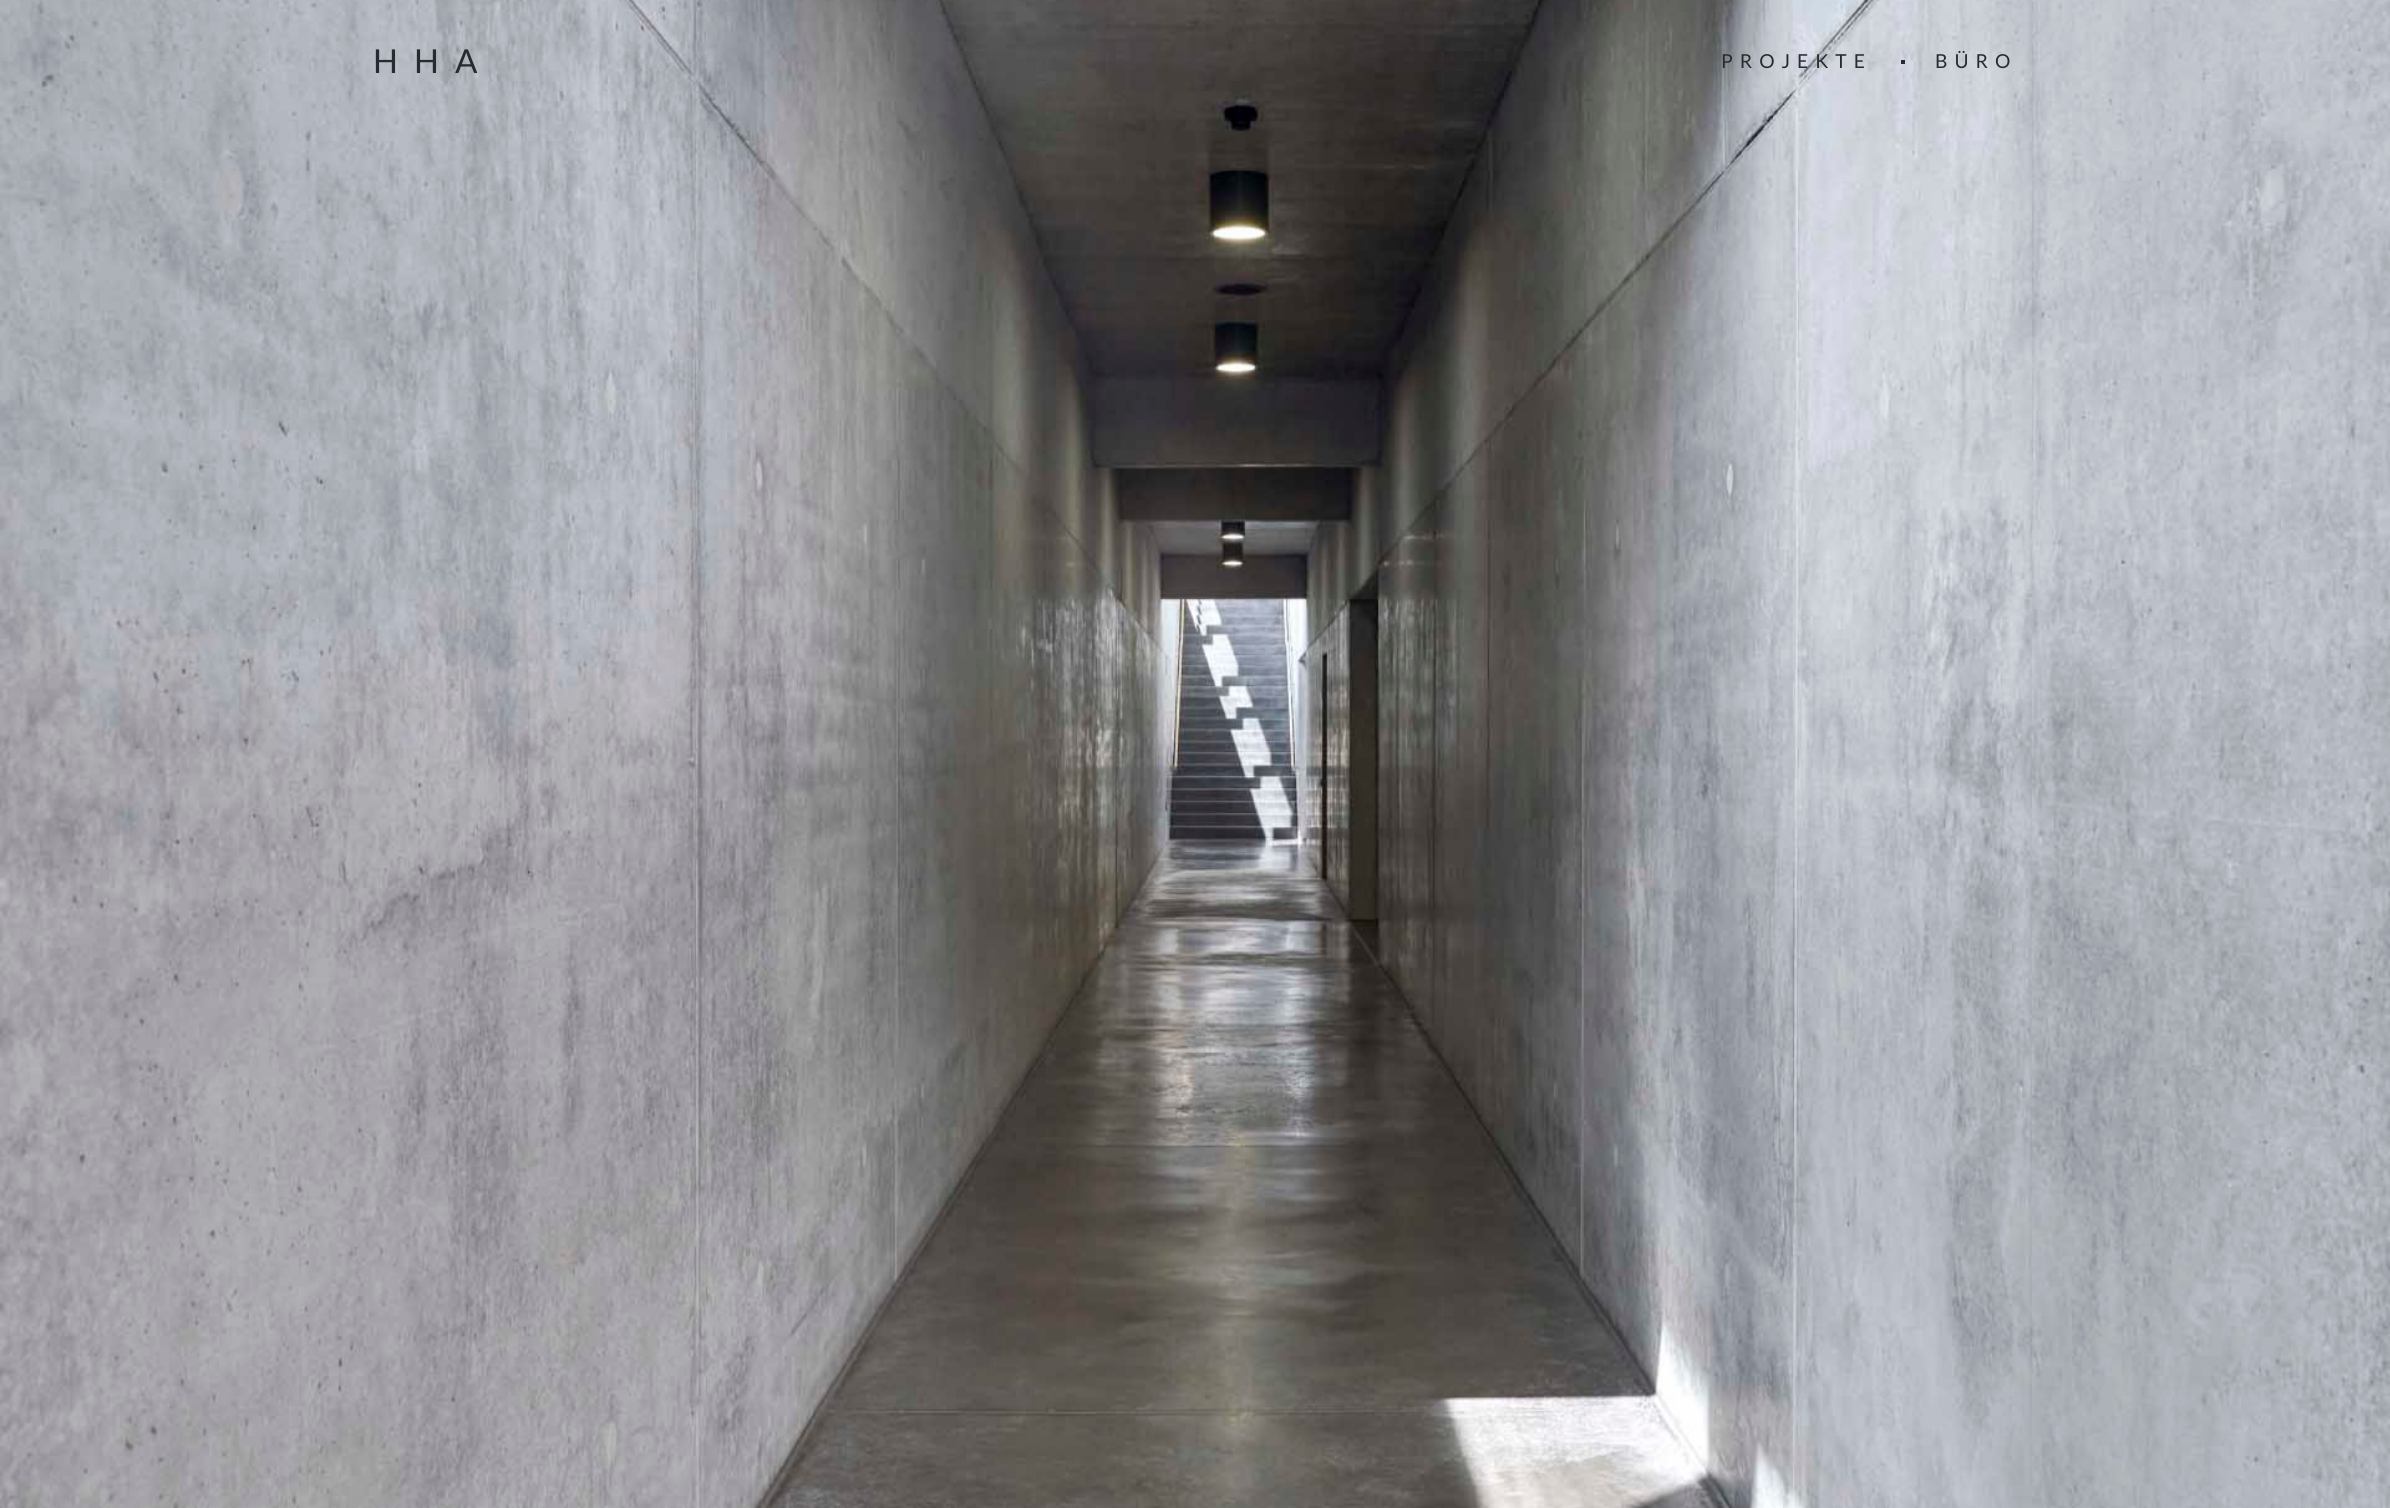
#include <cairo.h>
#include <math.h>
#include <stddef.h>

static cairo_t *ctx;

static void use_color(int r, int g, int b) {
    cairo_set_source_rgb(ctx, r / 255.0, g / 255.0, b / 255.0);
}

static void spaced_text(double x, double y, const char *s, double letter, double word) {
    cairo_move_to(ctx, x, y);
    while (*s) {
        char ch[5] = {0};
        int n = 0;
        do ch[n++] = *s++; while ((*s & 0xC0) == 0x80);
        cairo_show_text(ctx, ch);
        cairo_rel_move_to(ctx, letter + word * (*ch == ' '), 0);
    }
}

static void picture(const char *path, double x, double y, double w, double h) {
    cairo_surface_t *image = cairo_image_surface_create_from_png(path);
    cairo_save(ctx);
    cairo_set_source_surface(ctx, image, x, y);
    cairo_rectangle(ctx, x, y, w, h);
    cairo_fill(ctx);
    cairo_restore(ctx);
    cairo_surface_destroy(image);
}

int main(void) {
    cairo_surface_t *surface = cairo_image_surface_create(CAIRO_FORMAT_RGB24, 2390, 1508);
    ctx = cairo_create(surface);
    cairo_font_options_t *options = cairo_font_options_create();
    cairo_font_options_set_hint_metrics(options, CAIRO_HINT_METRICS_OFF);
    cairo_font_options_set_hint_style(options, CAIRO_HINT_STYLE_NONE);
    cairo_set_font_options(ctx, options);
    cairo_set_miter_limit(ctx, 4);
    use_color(255, 255, 255);
    cairo_paint(ctx);
    picture("img1.png", 0, 0, 2390, 1508);
    cairo_select_font_face(ctx, "Lato", CAIRO_FONT_SLANT_NORMAL, CAIRO_FONT_WEIGHT_NORMAL);
    cairo_set_font_size(ctx, 33);
    use_color(39, 43, 47);
    spaced_text(373, 73, "HHA", 16, 0);
    cairo_set_font_size(ctx, 19.25);
    spaced_text(1721, 68, "PROJEKTE", 7, 0);
    cairo_rectangle(ctx, 1901, 60, 4, 4);
    cairo_fill(ctx);
    spaced_text(1935, 68, "BÜRO", 7, 0);
    cairo_surface_write_to_png(surface, "result.png");
    cairo_font_options_destroy(options);
    cairo_destroy(ctx);
    cairo_surface_destroy(surface);
    return 0;
}
